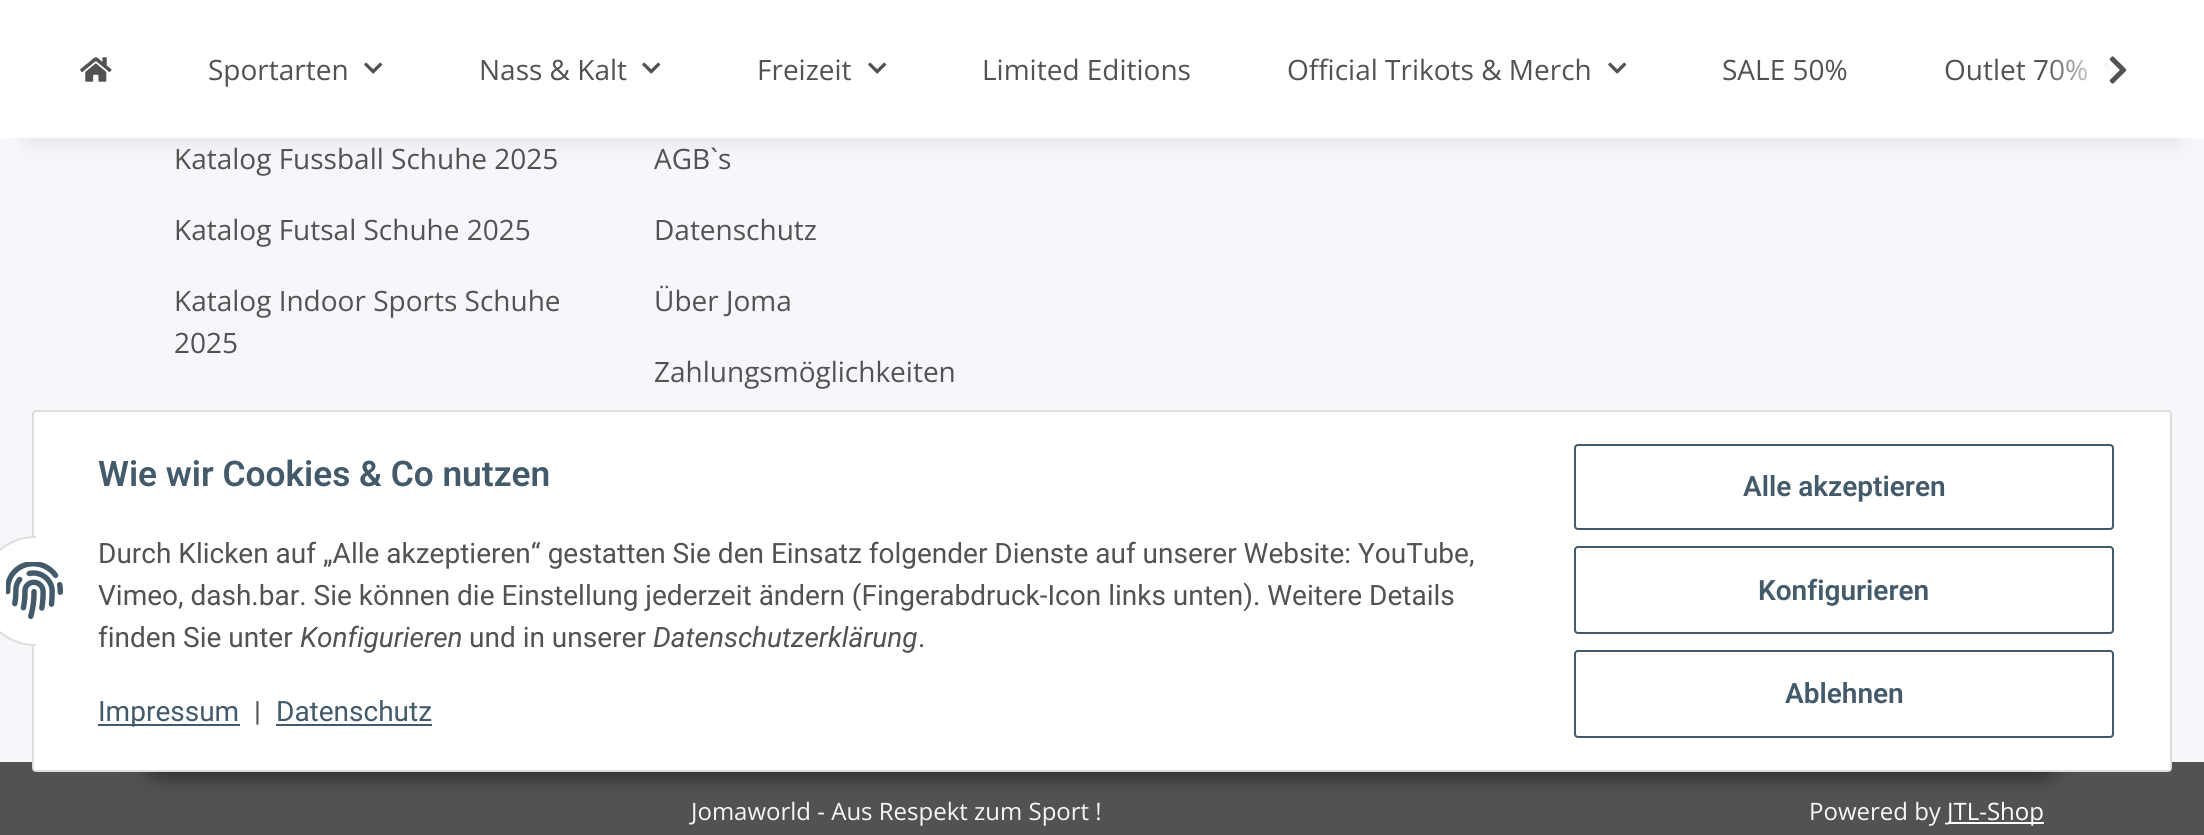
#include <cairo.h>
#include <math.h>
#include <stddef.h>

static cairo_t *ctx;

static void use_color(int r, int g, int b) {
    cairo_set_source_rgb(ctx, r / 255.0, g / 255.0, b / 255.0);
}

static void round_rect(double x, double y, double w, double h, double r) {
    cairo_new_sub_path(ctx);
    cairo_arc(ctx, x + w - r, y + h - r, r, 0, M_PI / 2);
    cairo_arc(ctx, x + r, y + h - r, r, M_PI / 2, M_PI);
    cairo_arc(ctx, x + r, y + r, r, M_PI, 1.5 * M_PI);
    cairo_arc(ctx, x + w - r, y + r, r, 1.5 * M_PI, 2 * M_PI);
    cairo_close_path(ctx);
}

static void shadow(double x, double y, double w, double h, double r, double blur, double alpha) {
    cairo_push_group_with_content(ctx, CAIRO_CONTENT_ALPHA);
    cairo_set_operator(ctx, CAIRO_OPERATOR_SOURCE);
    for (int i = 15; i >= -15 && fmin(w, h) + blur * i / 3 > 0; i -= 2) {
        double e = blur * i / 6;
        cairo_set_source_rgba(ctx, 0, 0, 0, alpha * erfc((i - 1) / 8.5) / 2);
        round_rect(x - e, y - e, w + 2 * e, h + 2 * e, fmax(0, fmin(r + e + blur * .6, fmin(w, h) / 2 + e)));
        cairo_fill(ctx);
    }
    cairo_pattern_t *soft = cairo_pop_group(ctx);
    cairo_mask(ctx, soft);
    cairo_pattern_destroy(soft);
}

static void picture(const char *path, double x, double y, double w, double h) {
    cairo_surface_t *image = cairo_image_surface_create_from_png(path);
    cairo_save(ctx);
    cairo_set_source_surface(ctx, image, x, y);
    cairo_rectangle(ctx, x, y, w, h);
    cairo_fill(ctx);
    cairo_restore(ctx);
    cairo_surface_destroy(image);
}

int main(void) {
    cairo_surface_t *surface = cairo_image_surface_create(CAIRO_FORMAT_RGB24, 2204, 835);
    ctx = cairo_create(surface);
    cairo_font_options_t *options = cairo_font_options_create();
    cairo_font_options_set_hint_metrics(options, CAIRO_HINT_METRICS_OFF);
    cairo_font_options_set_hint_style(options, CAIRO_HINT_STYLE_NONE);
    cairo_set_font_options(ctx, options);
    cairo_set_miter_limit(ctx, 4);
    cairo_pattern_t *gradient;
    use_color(245, 247, 250);
    cairo_paint(ctx);
    use_color(0, 0, 0);
    shadow(24, 56, 2156, 90, 0, 9, 0.06);
    use_color(255, 255, 255);
    cairo_rectangle(ctx, 0, 0, 2204, 138);
    cairo_fill(ctx);
    cairo_select_font_face(ctx, "Open Sans", CAIRO_FONT_SLANT_NORMAL, CAIRO_FONT_WEIGHT_NORMAL);
    cairo_set_font_size(ctx, 28);
    use_color(82, 82, 82);
    cairo_move_to(ctx, 1944, 80);
    cairo_show_text(ctx, "Outlet 70%");
    picture("img4.png", 2104, 62, 7, 10);
    gradient = cairo_pattern_create_linear(2044, 70, 2140, 70);
    cairo_pattern_add_color_stop_rgba(gradient, 0, 1, 1, 1, 0.01);
    cairo_pattern_add_color_stop_rgba(gradient, 0.7, 1, 1, 1, 1);
    cairo_set_source(ctx, gradient);
    cairo_pattern_destroy(gradient);
    cairo_rectangle(ctx, 2045, 59, 66, 22);
    cairo_fill(ctx);
    picture("img1.png", 2109, 56, 18, 28);
    picture("img2.png", 80, 57, 32, 25);
    use_color(82, 82, 82);
    cairo_move_to(ctx, 208, 80);
    cairo_show_text(ctx, "Sportarten");
    picture("img3.png", 364, 62, 19, 12);
    cairo_move_to(ctx, 479, 80);
    cairo_show_text(ctx, "Nass & Kalt");
    picture("img3.png", 642, 62, 19, 12);
    cairo_move_to(ctx, 757, 80);
    cairo_show_text(ctx, "Freizeit");
    picture("img3.png", 868, 62, 19, 12);
    cairo_move_to(ctx, 982, 80);
    cairo_show_text(ctx, "Limited Editions");
    cairo_move_to(ctx, 1287, 80);
    cairo_show_text(ctx, "Official Trikots & Merch");
    picture("img3.png", 1608, 62, 19, 12);
    cairo_move_to(ctx, 1722, 80);
    cairo_show_text(ctx, "SALE 50%");
    cairo_move_to(ctx, 174, 169);
    cairo_show_text(ctx, "Katalog Fussball Schuhe 2025");
    cairo_move_to(ctx, 174, 240);
    cairo_show_text(ctx, "Katalog Futsal Schuhe 2025");
    cairo_move_to(ctx, 174, 311);
    cairo_show_text(ctx, "Katalog Indoor Sports Schuhe");
    cairo_move_to(ctx, 174, 353);
    cairo_show_text(ctx, "2025");
    cairo_move_to(ctx, 654, 169);
    cairo_show_text(ctx, "AGB`s");
    cairo_move_to(ctx, 654, 240);
    cairo_show_text(ctx, "Datenschutz");
    cairo_move_to(ctx, 654, 311);
    cairo_show_text(ctx, "Über Joma");
    cairo_move_to(ctx, 654, 382);
    cairo_show_text(ctx, "Zahlungsmöglichkeiten");
    cairo_rectangle(ctx, 0, 762, 2204, 73);
    cairo_fill(ctx);
    cairo_set_font_size(ctx, 24);
    use_color(245, 247, 250);
    cairo_move_to(ctx, 691, 820);
    cairo_show_text(ctx, "Jomaworld - Aus Respekt zum Sport !");
    cairo_move_to(ctx, 1809, 820);
    cairo_show_text(ctx, "Powered by");
    use_color(255, 255, 255);
    cairo_rectangle(ctx, 1948, 822, 96, 2);
    cairo_fill(ctx);
    cairo_move_to(ctx, 1947, 820);
    cairo_show_text(ctx, "JTL-Shop");
    use_color(0, 0, 0);
    shadow(140, 714, 1924, 64, 32, 10, 0.45);
    use_color(255, 255, 255);
    round_rect(33, 411, 2138, 360, 3);
    cairo_fill_preserve(ctx);
    use_color(221, 221, 221);
    cairo_stroke(ctx);
    use_color(255, 255, 255);
    cairo_arc(ctx, 35, 591, 54, 0, 2 * M_PI);
    cairo_fill_preserve(ctx);
    use_color(221, 221, 221);
    cairo_stroke(ctx);
    use_color(255, 255, 255);
    cairo_rectangle(ctx, 36, 536, 54, 110);
    cairo_fill(ctx);
    picture("img5.png", 6, 562, 57, 57);
    cairo_select_font_face(ctx, "Roboto SemiBold", CAIRO_FONT_SLANT_NORMAL, CAIRO_FONT_WEIGHT_NORMAL);
    cairo_set_font_size(ctx, 35.25);
    use_color(67, 90, 107);
    cairo_move_to(ctx, 98, 486);
    cairo_show_text(ctx, "Wie wir Cookies & Co nutzen");
    cairo_select_font_face(ctx, "Roboto", CAIRO_FONT_SLANT_NORMAL, CAIRO_FONT_WEIGHT_NORMAL);
    cairo_set_font_size(ctx, 28);
    use_color(82, 82, 82);
    cairo_move_to(ctx, 98, 563);
    cairo_show_text(ctx, "Durch Klicken auf „Alle akzeptieren“ gestatten Sie den Einsatz folgender Dienste auf unserer Website: YouTube,");
    cairo_move_to(ctx, 98, 605);
    cairo_show_text(ctx, "Vimeo, dash.bar. Sie können die Einstellung jederzeit ändern (Fingerabdruck-Icon links unten). Weitere Details");
    cairo_move_to(ctx, 98, 647);
    cairo_show_text(ctx, "finden Sie unter");
    cairo_select_font_face(ctx, "Roboto", CAIRO_FONT_SLANT_ITALIC, CAIRO_FONT_WEIGHT_NORMAL);
    cairo_move_to(ctx, 300, 647);
    cairo_show_text(ctx, "Konfigurieren");
    cairo_select_font_face(ctx, "Roboto", CAIRO_FONT_SLANT_NORMAL, CAIRO_FONT_WEIGHT_NORMAL);
    cairo_move_to(ctx, 469, 647);
    cairo_show_text(ctx, "und in unserer");
    cairo_select_font_face(ctx, "Roboto", CAIRO_FONT_SLANT_ITALIC, CAIRO_FONT_WEIGHT_NORMAL);
    cairo_move_to(ctx, 653, 647);
    cairo_show_text(ctx, "Datenschutzerklärung");
    cairo_select_font_face(ctx, "Roboto", CAIRO_FONT_SLANT_NORMAL, CAIRO_FONT_WEIGHT_NORMAL);
    cairo_move_to(ctx, 918, 647);
    cairo_show_text(ctx, ".");
    use_color(67, 90, 107);
    cairo_rectangle(ctx, 98, 724, 142, 2);
    cairo_fill(ctx);
    cairo_move_to(ctx, 98, 721);
    cairo_show_text(ctx, "Impressum");
    use_color(82, 82, 82);
    cairo_move_to(ctx, 254, 721);
    cairo_show_text(ctx, "|");
    use_color(67, 90, 107);
    cairo_move_to(ctx, 276, 721);
    cairo_show_text(ctx, "Datenschutz");
    cairo_rectangle(ctx, 276, 724, 156, 2);
    cairo_fill(ctx);
    round_rect(1575, 445, 538, 84, 3);
    cairo_stroke(ctx);
    cairo_select_font_face(ctx, "Roboto SemiBold", CAIRO_FONT_SLANT_NORMAL, CAIRO_FONT_WEIGHT_NORMAL);
    cairo_move_to(ctx, 1743, 496);
    cairo_show_text(ctx, "Alle akzeptieren");
    round_rect(1575, 547, 538, 86, 3);
    cairo_stroke(ctx);
    cairo_move_to(ctx, 1758, 600);
    cairo_show_text(ctx, "Konfigurieren");
    round_rect(1575, 651, 538, 86, 3);
    cairo_stroke(ctx);
    cairo_move_to(ctx, 1785, 703);
    cairo_show_text(ctx, "Ablehnen");
    cairo_surface_write_to_png(surface, "result.png");
    cairo_font_options_destroy(options);
    cairo_destroy(ctx);
    cairo_surface_destroy(surface);
    return 0;
}
